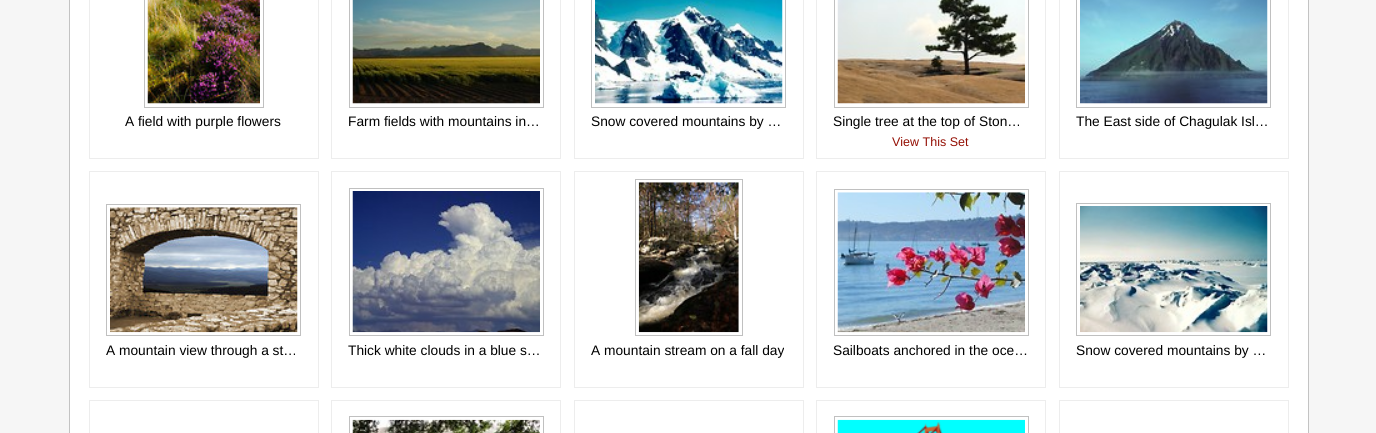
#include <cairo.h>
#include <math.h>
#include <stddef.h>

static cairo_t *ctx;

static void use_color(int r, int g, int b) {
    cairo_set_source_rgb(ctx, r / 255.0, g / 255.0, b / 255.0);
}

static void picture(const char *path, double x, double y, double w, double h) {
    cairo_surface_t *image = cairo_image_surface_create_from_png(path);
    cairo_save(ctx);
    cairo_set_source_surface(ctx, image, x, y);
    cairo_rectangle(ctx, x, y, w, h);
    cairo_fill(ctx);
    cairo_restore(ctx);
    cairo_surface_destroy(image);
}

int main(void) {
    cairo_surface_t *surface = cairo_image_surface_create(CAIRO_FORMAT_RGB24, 1376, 433);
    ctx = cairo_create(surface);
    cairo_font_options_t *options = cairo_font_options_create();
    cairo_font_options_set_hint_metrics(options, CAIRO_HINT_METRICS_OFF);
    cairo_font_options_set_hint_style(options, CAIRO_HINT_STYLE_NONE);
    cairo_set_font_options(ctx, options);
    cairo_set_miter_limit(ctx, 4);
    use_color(246, 246, 246);
    cairo_paint(ctx);
    use_color(255, 255, 255);
    cairo_rectangle(ctx, 69.5, -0.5, 1239, 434);
    cairo_fill_preserve(ctx);
    use_color(195, 195, 195);
    cairo_set_line_width(ctx, 1);
    cairo_stroke(ctx);
    cairo_rectangle(ctx, 89.5, -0.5, 229, 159);
    use_color(237, 237, 237);
    cairo_stroke(ctx);
    cairo_rectangle(ctx, 144.5, -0.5, 119, 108);
    use_color(192, 192, 192);
    cairo_stroke(ctx);
    picture("img1.png", 147, 0, 113, 104);
    cairo_select_font_face(ctx, "Liberation Sans", CAIRO_FONT_SLANT_NORMAL, CAIRO_FONT_WEIGHT_NORMAL);
    cairo_set_font_size(ctx, 13.75);
    use_color(0, 0, 0);
    cairo_move_to(ctx, 125, 126);
    cairo_show_text(ctx, "A field with purple flowers");
    cairo_rectangle(ctx, 331.5, -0.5, 229, 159);
    use_color(237, 237, 237);
    cairo_stroke(ctx);
    cairo_rectangle(ctx, 349.5, -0.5, 194, 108);
    use_color(192, 192, 192);
    cairo_stroke(ctx);
    picture("img2.png", 352, 0, 188, 104);
    use_color(0, 0, 0);
    cairo_move_to(ctx, 348, 126);
    cairo_show_text(ctx, "Farm fields with mountains in…");
    cairo_rectangle(ctx, 574.5, -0.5, 229, 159);
    use_color(237, 237, 237);
    cairo_stroke(ctx);
    cairo_rectangle(ctx, 591.5, -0.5, 194, 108);
    use_color(192, 192, 192);
    cairo_stroke(ctx);
    picture("img3.png", 595, 0, 188, 104);
    use_color(0, 0, 0);
    cairo_move_to(ctx, 591, 126);
    cairo_show_text(ctx, "Snow covered mountains by …");
    cairo_rectangle(ctx, 816.5, -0.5, 229, 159);
    use_color(237, 237, 237);
    cairo_stroke(ctx);
    cairo_rectangle(ctx, 834.5, -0.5, 194, 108);
    use_color(192, 192, 192);
    cairo_stroke(ctx);
    picture("img4.png", 837, 0, 188, 104);
    use_color(0, 0, 0);
    cairo_move_to(ctx, 833, 126);
    cairo_show_text(ctx, "Single tree at the top of Ston…");
    cairo_set_font_size(ctx, 12.5);
    use_color(148, 15, 4);
    cairo_move_to(ctx, 892, 146);
    cairo_show_text(ctx, "View This Set");
    cairo_rectangle(ctx, 1059.5, -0.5, 229, 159);
    use_color(237, 237, 237);
    cairo_stroke(ctx);
    cairo_rectangle(ctx, 1076.5, -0.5, 194, 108);
    use_color(192, 192, 192);
    cairo_stroke(ctx);
    picture("img5.png", 1080, 0, 188, 104);
    cairo_set_font_size(ctx, 13.75);
    use_color(0, 0, 0);
    cairo_move_to(ctx, 1076, 126);
    cairo_show_text(ctx, "The East side of Chagulak Isl…");
    cairo_rectangle(ctx, 89.5, 171.5, 229, 216);
    use_color(237, 237, 237);
    cairo_stroke(ctx);
    cairo_rectangle(ctx, 106.5, 204.5, 194, 131);
    use_color(192, 192, 192);
    cairo_stroke(ctx);
    picture("img6.png", 110, 207, 188, 126);
    use_color(0, 0, 0);
    cairo_move_to(ctx, 106, 355);
    cairo_show_text(ctx, "A mountain view through a st…");
    cairo_rectangle(ctx, 331.5, 171.5, 229, 216);
    use_color(237, 237, 237);
    cairo_stroke(ctx);
    cairo_rectangle(ctx, 349.5, 188.5, 194, 147);
    use_color(192, 192, 192);
    cairo_stroke(ctx);
    picture("img7.png", 352, 191, 188, 142);
    use_color(0, 0, 0);
    cairo_move_to(ctx, 348, 355);
    cairo_show_text(ctx, "Thick white clouds in a blue s…");
    cairo_rectangle(ctx, 574.5, 171.5, 229, 216);
    use_color(237, 237, 237);
    cairo_stroke(ctx);
    cairo_rectangle(ctx, 635.5, 179.5, 107, 156);
    use_color(192, 192, 192);
    cairo_stroke(ctx);
    picture("img8.png", 638, 182, 101, 151);
    use_color(0, 0, 0);
    cairo_move_to(ctx, 591, 355);
    cairo_show_text(ctx, "A mountain stream on a fall day");
    cairo_rectangle(ctx, 816.5, 171.5, 229, 216);
    use_color(237, 237, 237);
    cairo_stroke(ctx);
    cairo_rectangle(ctx, 834.5, 189.5, 194, 146);
    use_color(192, 192, 192);
    cairo_stroke(ctx);
    picture("img9.png", 837, 192, 188, 141);
    use_color(0, 0, 0);
    cairo_move_to(ctx, 833, 355);
    cairo_show_text(ctx, "Sailboats anchored in the oce…");
    cairo_rectangle(ctx, 1059.5, 171.5, 229, 216);
    use_color(237, 237, 237);
    cairo_stroke(ctx);
    cairo_rectangle(ctx, 1076.5, 203.5, 194, 132);
    use_color(192, 192, 192);
    cairo_stroke(ctx);
    picture("img10.png", 1080, 206, 188, 127);
    use_color(0, 0, 0);
    cairo_move_to(ctx, 1076, 355);
    cairo_show_text(ctx, "Snow covered mountains by …");
    cairo_rectangle(ctx, 89.5, 400.5, 229, 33);
    use_color(237, 237, 237);
    cairo_stroke(ctx);
    cairo_rectangle(ctx, 331.5, 400.5, 229, 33);
    cairo_stroke(ctx);
    cairo_rectangle(ctx, 349.5, 416.5, 194, 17);
    use_color(192, 192, 192);
    cairo_stroke(ctx);
    picture("img11.png", 352, 419, 188, 14);
    cairo_rectangle(ctx, 574.5, 400.5, 229, 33);
    use_color(237, 237, 237);
    cairo_stroke(ctx);
    cairo_rectangle(ctx, 816.5, 400.5, 229, 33);
    cairo_stroke(ctx);
    cairo_rectangle(ctx, 834.5, 416.5, 194, 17);
    use_color(192, 192, 192);
    cairo_stroke(ctx);
    picture("img12.png", 837, 419, 188, 14);
    cairo_rectangle(ctx, 1059.5, 400.5, 229, 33);
    use_color(237, 237, 237);
    cairo_stroke(ctx);
    cairo_surface_write_to_png(surface, "result.png");
    cairo_font_options_destroy(options);
    cairo_destroy(ctx);
    cairo_surface_destroy(surface);
    return 0;
}
